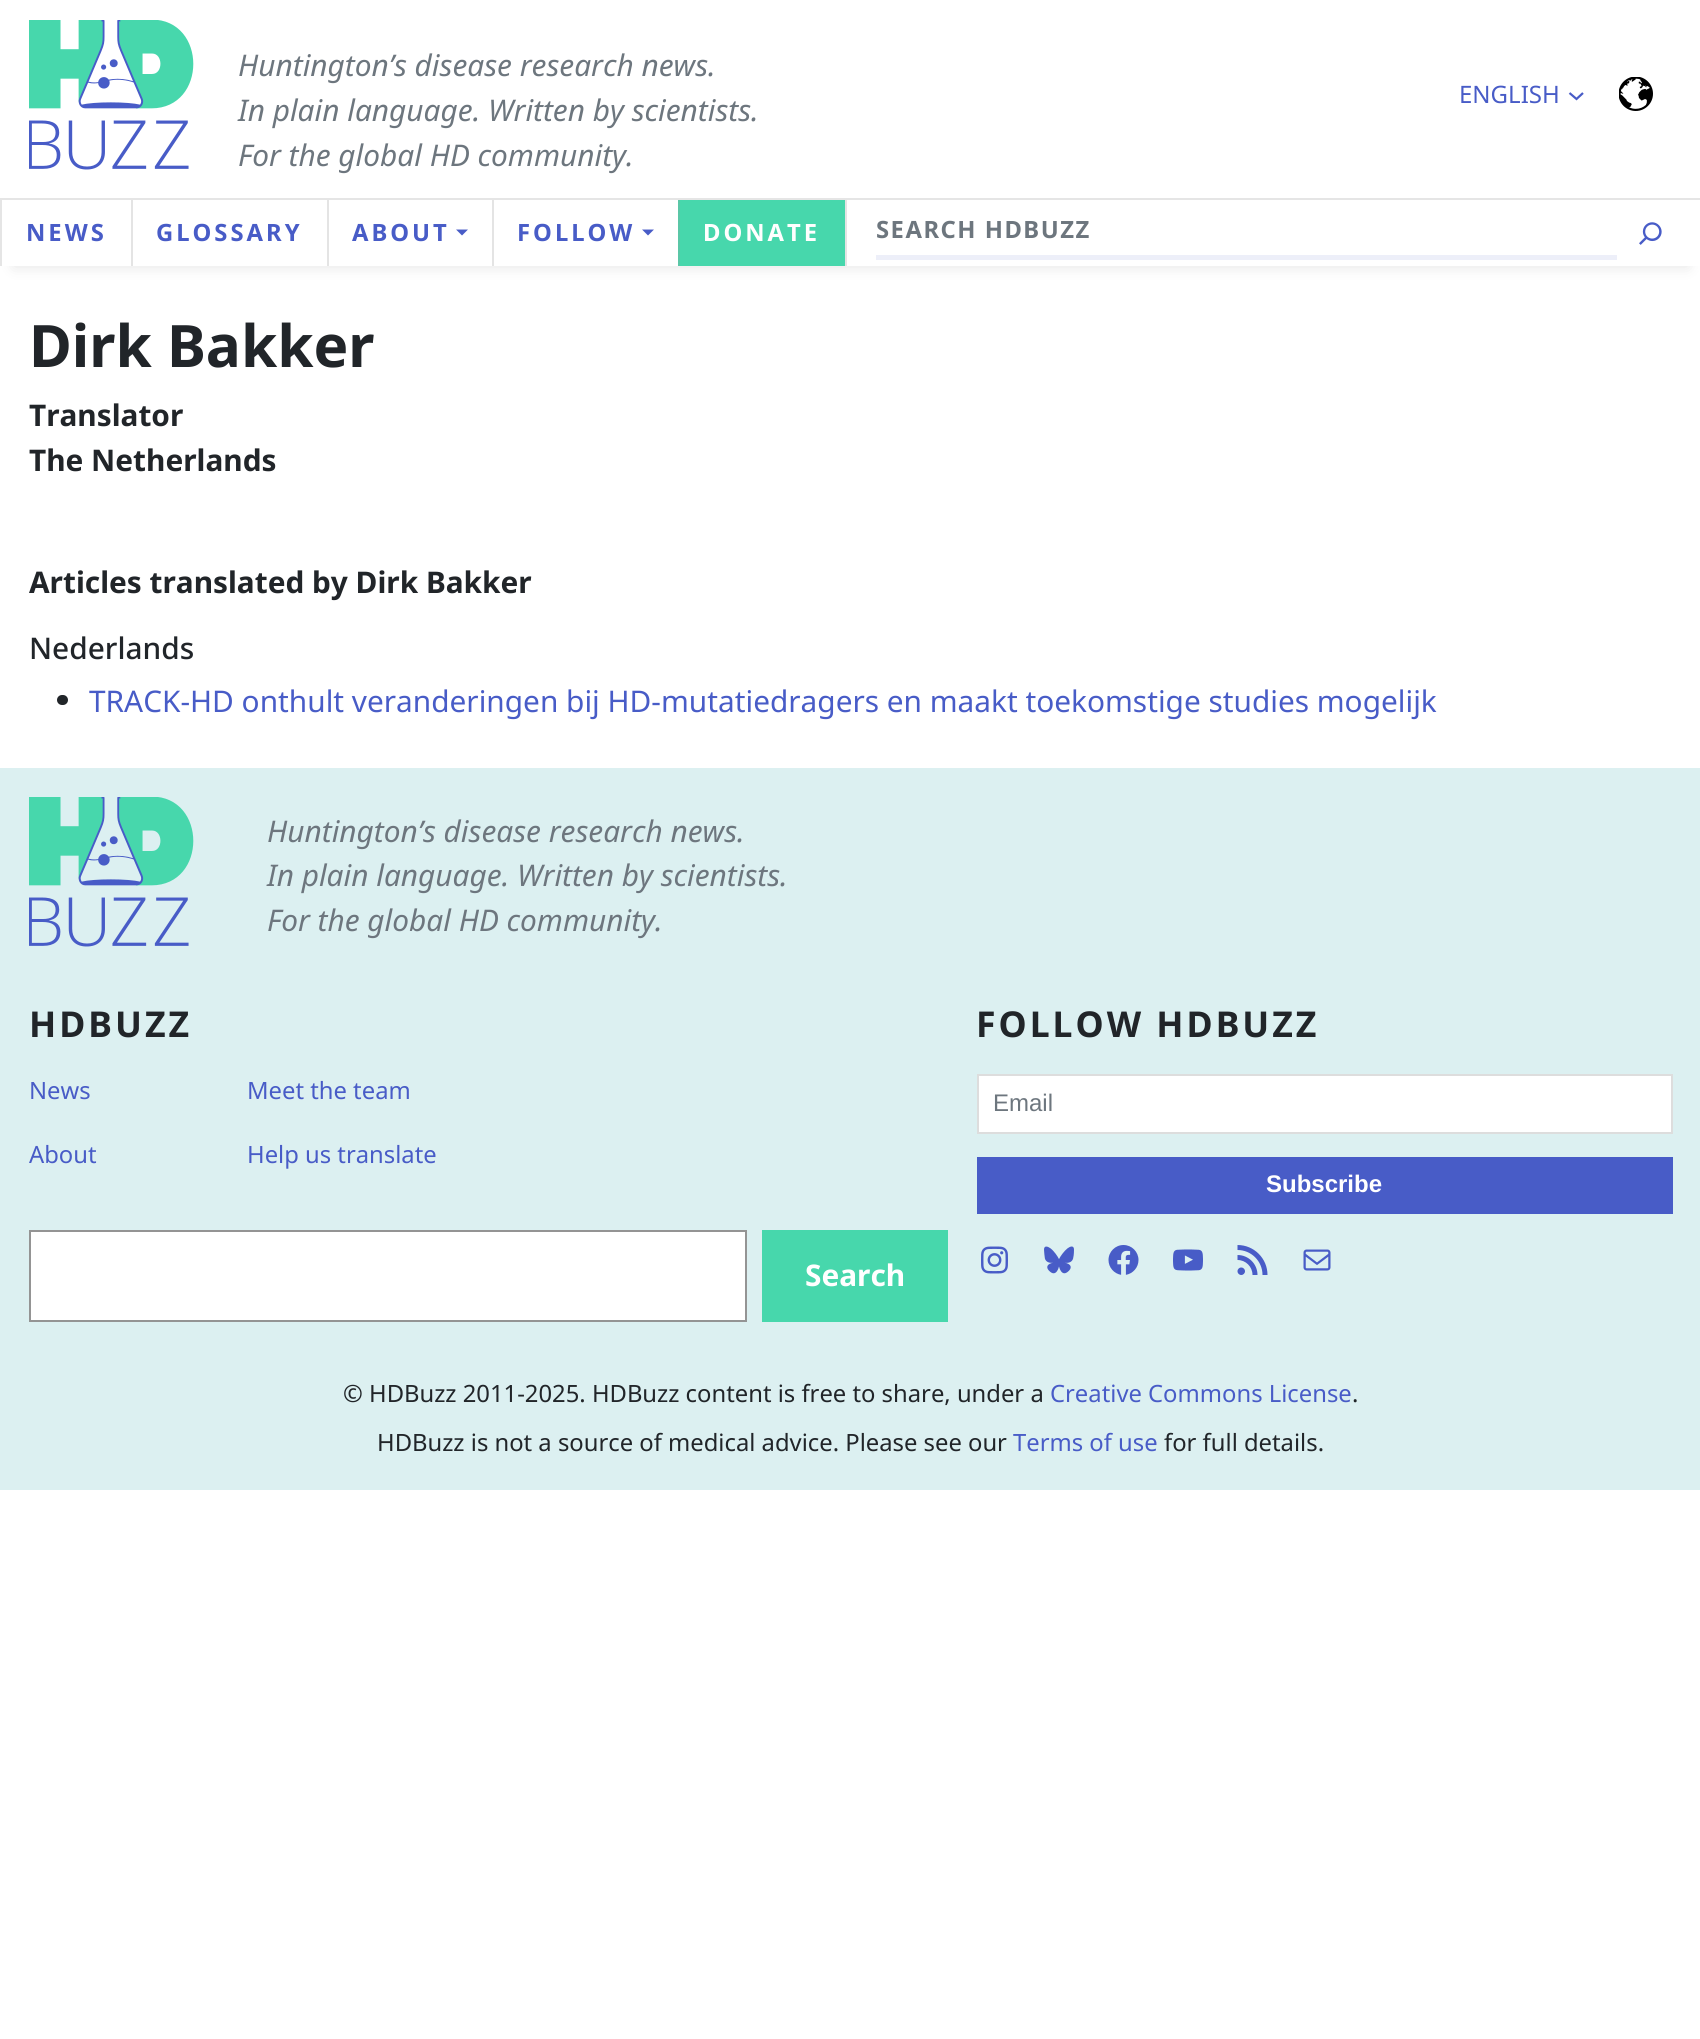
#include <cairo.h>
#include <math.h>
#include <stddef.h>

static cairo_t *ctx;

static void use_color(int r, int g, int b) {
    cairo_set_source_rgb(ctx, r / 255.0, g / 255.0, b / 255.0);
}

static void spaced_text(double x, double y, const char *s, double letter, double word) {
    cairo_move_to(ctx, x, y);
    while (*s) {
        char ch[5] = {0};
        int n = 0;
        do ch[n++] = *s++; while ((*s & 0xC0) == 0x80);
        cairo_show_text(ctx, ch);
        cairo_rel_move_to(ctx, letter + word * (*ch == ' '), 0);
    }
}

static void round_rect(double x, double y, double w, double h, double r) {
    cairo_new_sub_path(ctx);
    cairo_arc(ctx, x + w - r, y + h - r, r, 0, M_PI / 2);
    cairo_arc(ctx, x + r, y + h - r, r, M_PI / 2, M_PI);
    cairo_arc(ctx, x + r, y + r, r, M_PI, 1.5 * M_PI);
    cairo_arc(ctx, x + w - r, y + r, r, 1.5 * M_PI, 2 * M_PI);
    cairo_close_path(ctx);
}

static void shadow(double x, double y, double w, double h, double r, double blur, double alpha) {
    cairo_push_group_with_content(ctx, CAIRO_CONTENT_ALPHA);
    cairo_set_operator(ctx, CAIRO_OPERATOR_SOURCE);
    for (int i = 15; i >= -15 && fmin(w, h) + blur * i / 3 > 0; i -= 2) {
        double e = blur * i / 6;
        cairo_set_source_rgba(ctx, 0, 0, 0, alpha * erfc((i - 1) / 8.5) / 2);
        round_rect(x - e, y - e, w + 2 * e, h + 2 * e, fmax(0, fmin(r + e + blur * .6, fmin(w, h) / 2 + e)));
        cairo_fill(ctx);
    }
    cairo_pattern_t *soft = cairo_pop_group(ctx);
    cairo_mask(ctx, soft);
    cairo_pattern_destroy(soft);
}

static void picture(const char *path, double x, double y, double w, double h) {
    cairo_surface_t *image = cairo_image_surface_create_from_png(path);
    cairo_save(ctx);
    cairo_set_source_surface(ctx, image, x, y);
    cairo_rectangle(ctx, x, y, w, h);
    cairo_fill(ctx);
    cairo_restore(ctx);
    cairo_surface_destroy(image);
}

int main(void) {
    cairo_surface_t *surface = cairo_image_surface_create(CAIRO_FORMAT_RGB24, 1700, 2039);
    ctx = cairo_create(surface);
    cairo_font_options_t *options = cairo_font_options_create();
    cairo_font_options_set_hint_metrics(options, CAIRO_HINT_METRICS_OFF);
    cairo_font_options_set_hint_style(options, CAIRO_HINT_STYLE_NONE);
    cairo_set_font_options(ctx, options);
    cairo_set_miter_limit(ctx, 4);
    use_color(255, 255, 255);
    cairo_paint(ctx);
    picture("img1.png", 29, 20, 165, 150);
    cairo_select_font_face(ctx, "Noto Sans", CAIRO_FONT_SLANT_ITALIC, CAIRO_FONT_WEIGHT_NORMAL);
    cairo_set_font_size(ctx, 29.8);
    use_color(109, 118, 126);
    cairo_move_to(ctx, 238, 76);
    cairo_show_text(ctx, "Huntington’s disease research news.");
    cairo_move_to(ctx, 238, 121);
    cairo_show_text(ctx, "In plain language. Written by scientists.");
    cairo_move_to(ctx, 238, 166);
    cairo_show_text(ctx, "For the global HD community.");
    cairo_select_font_face(ctx, "Noto Sans", CAIRO_FONT_SLANT_NORMAL, CAIRO_FONT_WEIGHT_NORMAL);
    cairo_set_font_size(ctx, 24);
    use_color(72, 92, 199);
    cairo_move_to(ctx, 1459, 103);
    cairo_show_text(ctx, "ENGLISH");
    cairo_new_path(ctx);
    cairo_move_to(ctx, 1569.5, 93);
    cairo_line_to(ctx, 1576.5, 99);
    cairo_line_to(ctx, 1583, 93);
    cairo_set_line_width(ctx, 2.2);
    cairo_stroke(ctx);
    picture("img2.png", 1619, 77, 34, 34);
    cairo_save(ctx);
    cairo_set_fill_rule(ctx, CAIRO_FILL_RULE_EVEN_ODD);
    cairo_new_path(ctx);
    cairo_move_to(ctx, 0, 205);
    cairo_line_to(ctx, 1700, 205);
    cairo_line_to(ctx, 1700, 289);
    cairo_line_to(ctx, 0, 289);
    cairo_close_path(ctx);
    cairo_move_to(ctx, 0, 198);
    cairo_line_to(ctx, 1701, 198);
    cairo_line_to(ctx, 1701, 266);
    cairo_line_to(ctx, 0, 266);
    cairo_close_path(ctx);
    cairo_clip(ctx);
    use_color(151, 151, 151);
    shadow(14, 227, 1674, 40, 0, 7, 0.25);
    cairo_restore(ctx);
    use_color(229, 229, 229);
    cairo_rectangle(ctx, 0, 198, 1700, 2);
    cairo_fill(ctx);
    cairo_rectangle(ctx, 0, 200, 2, 66);
    cairo_fill(ctx);
    cairo_select_font_face(ctx, "Noto Sans", CAIRO_FONT_SLANT_NORMAL, CAIRO_FONT_WEIGHT_BOLD);
    cairo_set_font_size(ctx, 23.8);
    use_color(72, 92, 199);
    spaced_text(26, 241, "NEWS", 3, 0);
    cairo_set_source_rgba(ctx, 0.592, 0.592, 0.592, 0.25);
    cairo_rectangle(ctx, 131, 200, 2, 66);
    cairo_fill(ctx);
    use_color(72, 92, 199);
    spaced_text(156, 241, "GLOSSARY", 3, 0);
    cairo_set_source_rgba(ctx, 0.592, 0.592, 0.592, 0.25);
    cairo_rectangle(ctx, 327, 200, 2, 66);
    cairo_fill(ctx);
    use_color(72, 92, 199);
    spaced_text(352, 241, "ABOUT", 3, 0);
    cairo_new_path(ctx);
    cairo_move_to(ctx, 456, 229.5);
    cairo_line_to(ctx, 468, 229.5);
    cairo_line_to(ctx, 462, 235.5);
    cairo_close_path(ctx);
    cairo_fill(ctx);
    cairo_set_source_rgba(ctx, 0.592, 0.592, 0.592, 0.25);
    cairo_rectangle(ctx, 492, 200, 2, 66);
    cairo_fill(ctx);
    use_color(72, 92, 199);
    spaced_text(517, 241, "FOLLOW", 3, 0);
    cairo_new_path(ctx);
    cairo_move_to(ctx, 642, 229.5);
    cairo_line_to(ctx, 654, 229.5);
    cairo_line_to(ctx, 648, 235.5);
    cairo_close_path(ctx);
    cairo_fill(ctx);
    use_color(71, 215, 172);
    cairo_rectangle(ctx, 680, 200, 165, 66);
    cairo_fill(ctx);
    use_color(91, 199, 167);
    cairo_rectangle(ctx, 678, 200, 2, 66);
    cairo_fill(ctx);
    use_color(255, 255, 255);
    spaced_text(703, 241, "DONATE", 3, 0);
    cairo_set_source_rgba(ctx, 0.592, 0.592, 0.592, 0.25);
    cairo_rectangle(ctx, 845, 200, 2, 66);
    cairo_fill(ctx);
    use_color(255, 255, 255);
    cairo_rectangle(ctx, 870, 265, 806, 1);
    cairo_fill(ctx);
    use_color(237, 239, 249);
    cairo_rectangle(ctx, 876, 255, 741, 5);
    cairo_fill(ctx);
    use_color(109, 118, 126);
    spaced_text(876, 238, "SEARCH HDBUZZ", 1.5, 0);
    picture("img3.png", 1639, 222, 23, 23);
    cairo_set_font_size(ctx, 58.5);
    use_color(33, 37, 41);
    cairo_move_to(ctx, 29, 367);
    cairo_show_text(ctx, "Dirk Bakker");
    cairo_set_font_size(ctx, 29.8);
    cairo_move_to(ctx, 29, 426);
    cairo_show_text(ctx, "Translator");
    cairo_move_to(ctx, 29, 471);
    cairo_show_text(ctx, "The Netherlands");
    cairo_move_to(ctx, 29, 593);
    cairo_show_text(ctx, "Articles translated by Dirk Bakker");
    cairo_select_font_face(ctx, "Noto Sans Medium", CAIRO_FONT_SLANT_NORMAL, CAIRO_FONT_WEIGHT_NORMAL);
    cairo_move_to(ctx, 29, 659);
    cairo_show_text(ctx, "Nederlands");
    round_rect(57, 695, 11, 10, 5);
    cairo_fill(ctx);
    cairo_select_font_face(ctx, "Noto Sans", CAIRO_FONT_SLANT_NORMAL, CAIRO_FONT_WEIGHT_NORMAL);
    use_color(72, 92, 199);
    cairo_move_to(ctx, 89, 712);
    cairo_show_text(ctx, "TRACK-HD onthult veranderingen bij HD-mutatiedragers en maakt toekomstige studies mogelijk");
    use_color(220, 240, 241);
    cairo_rectangle(ctx, 0, 768, 1700, 722);
    cairo_fill(ctx);
    picture("img4.png", 29, 797, 165, 150);
    cairo_select_font_face(ctx, "Noto Sans", CAIRO_FONT_SLANT_ITALIC, CAIRO_FONT_WEIGHT_NORMAL);
    use_color(109, 118, 126);
    cairo_move_to(ctx, 267, 842);
    cairo_show_text(ctx, "Huntington’s disease research news.");
    cairo_move_to(ctx, 267, 886);
    cairo_show_text(ctx, "In plain language. Written by scientists.");
    cairo_move_to(ctx, 267, 931);
    cairo_show_text(ctx, "For the global HD community.");
    cairo_select_font_face(ctx, "Noto Sans", CAIRO_FONT_SLANT_NORMAL, CAIRO_FONT_WEIGHT_BOLD);
    cairo_set_font_size(ctx, 35.6);
    use_color(33, 37, 41);
    spaced_text(29, 1037, "HDBUZZ", 3, 0);
    cairo_select_font_face(ctx, "Noto Sans", CAIRO_FONT_SLANT_NORMAL, CAIRO_FONT_WEIGHT_NORMAL);
    cairo_set_font_size(ctx, 23.8);
    use_color(72, 92, 199);
    cairo_move_to(ctx, 29, 1099);
    cairo_show_text(ctx, "News");
    cairo_move_to(ctx, 247, 1099);
    cairo_show_text(ctx, "Meet the team");
    cairo_move_to(ctx, 29, 1163);
    cairo_show_text(ctx, "About");
    cairo_move_to(ctx, 247, 1163);
    cairo_show_text(ctx, "Help us translate");
    use_color(255, 255, 255);
    cairo_rectangle(ctx, 30, 1231, 716, 90);
    cairo_fill_preserve(ctx);
    use_color(148, 148, 148);
    cairo_set_line_width(ctx, 2);
    cairo_stroke(ctx);
    use_color(71, 215, 172);
    cairo_rectangle(ctx, 762, 1230, 186, 92);
    cairo_fill(ctx);
    cairo_select_font_face(ctx, "Noto Sans", CAIRO_FONT_SLANT_NORMAL, CAIRO_FONT_WEIGHT_BOLD);
    cairo_set_font_size(ctx, 29.8);
    use_color(255, 255, 255);
    cairo_move_to(ctx, 805, 1286);
    cairo_show_text(ctx, "Search");
    cairo_set_font_size(ctx, 35.6);
    use_color(33, 37, 41);
    spaced_text(976, 1037, "FOLLOW HDBUZZ", 3, 0);
    use_color(255, 255, 255);
    cairo_rectangle(ctx, 978, 1075, 694, 58);
    cairo_fill_preserve(ctx);
    use_color(221, 221, 221);
    cairo_stroke(ctx);
    cairo_select_font_face(ctx, "Liberation Sans", CAIRO_FONT_SLANT_NORMAL, CAIRO_FONT_WEIGHT_NORMAL);
    cairo_set_font_size(ctx, 24);
    use_color(109, 118, 126);
    cairo_move_to(ctx, 993, 1111);
    cairo_show_text(ctx, "Email");
    use_color(72, 92, 199);
    cairo_rectangle(ctx, 977, 1157, 696, 57);
    cairo_fill(ctx);
    cairo_select_font_face(ctx, "Liberation Sans", CAIRO_FONT_SLANT_NORMAL, CAIRO_FONT_WEIGHT_BOLD);
    use_color(255, 255, 255);
    cairo_move_to(ctx, 1266, 1192);
    cairo_show_text(ctx, "Subscribe");
    picture("img5.png", 981, 1246, 27, 28);
    picture("img6.png", 1044, 1246, 30, 28);
    picture("img7.png", 1108, 1245, 31, 30);
    picture("img8.png", 1173, 1249, 30, 22);
    picture("img9.png", 1237, 1245, 31, 30);
    picture("img10.png", 1303, 1249, 28, 22);
    cairo_select_font_face(ctx, "Noto Sans", CAIRO_FONT_SLANT_NORMAL, CAIRO_FONT_WEIGHT_NORMAL);
    cairo_set_font_size(ctx, 23.8);
    use_color(33, 37, 41);
    cairo_move_to(ctx, 343, 1402);
    cairo_show_text(ctx, "© HDBuzz 2011-2025. HDBuzz content is free to share, under a");
    use_color(72, 92, 199);
    cairo_move_to(ctx, 1050, 1402);
    cairo_show_text(ctx, "Creative Commons License");
    use_color(33, 37, 41);
    cairo_move_to(ctx, 1352, 1402);
    cairo_show_text(ctx, ".");
    cairo_move_to(ctx, 377, 1451);
    cairo_show_text(ctx, "HDBuzz is not a source of medical advice. Please see our");
    use_color(72, 92, 199);
    cairo_move_to(ctx, 1013, 1451);
    cairo_show_text(ctx, "Terms of use");
    use_color(33, 37, 41);
    cairo_move_to(ctx, 1164, 1451);
    cairo_show_text(ctx, "for full details.");
    cairo_surface_write_to_png(surface, "result.png");
    cairo_font_options_destroy(options);
    cairo_destroy(ctx);
    cairo_surface_destroy(surface);
    return 0;
}
